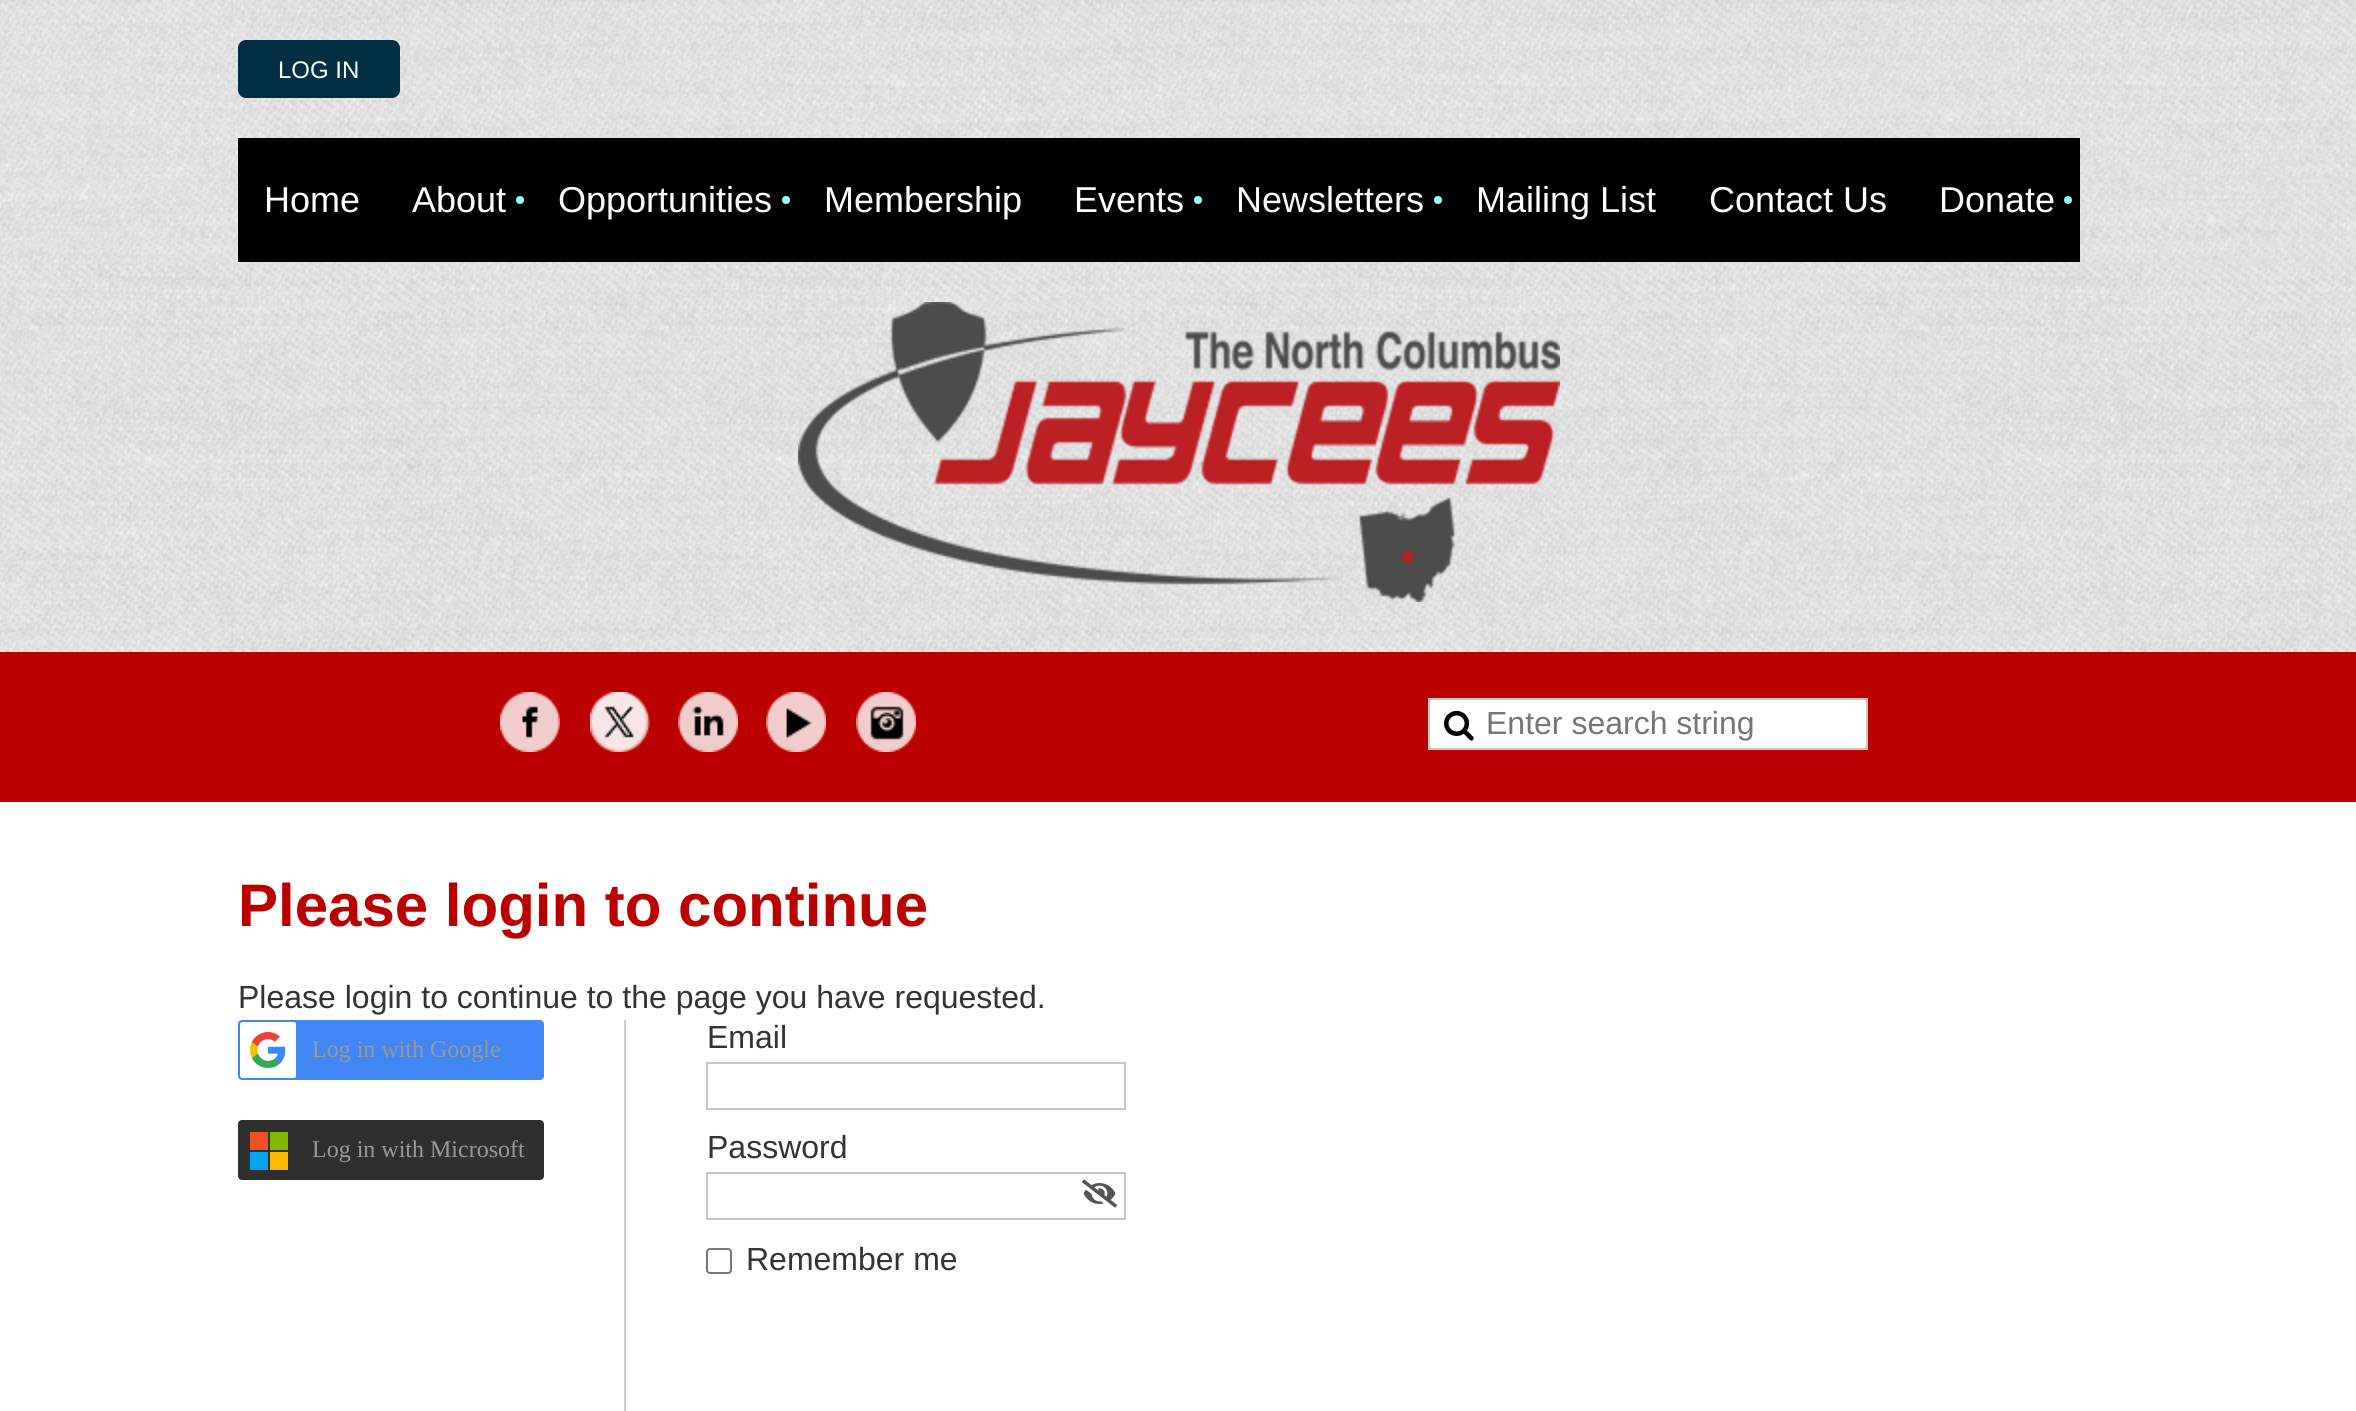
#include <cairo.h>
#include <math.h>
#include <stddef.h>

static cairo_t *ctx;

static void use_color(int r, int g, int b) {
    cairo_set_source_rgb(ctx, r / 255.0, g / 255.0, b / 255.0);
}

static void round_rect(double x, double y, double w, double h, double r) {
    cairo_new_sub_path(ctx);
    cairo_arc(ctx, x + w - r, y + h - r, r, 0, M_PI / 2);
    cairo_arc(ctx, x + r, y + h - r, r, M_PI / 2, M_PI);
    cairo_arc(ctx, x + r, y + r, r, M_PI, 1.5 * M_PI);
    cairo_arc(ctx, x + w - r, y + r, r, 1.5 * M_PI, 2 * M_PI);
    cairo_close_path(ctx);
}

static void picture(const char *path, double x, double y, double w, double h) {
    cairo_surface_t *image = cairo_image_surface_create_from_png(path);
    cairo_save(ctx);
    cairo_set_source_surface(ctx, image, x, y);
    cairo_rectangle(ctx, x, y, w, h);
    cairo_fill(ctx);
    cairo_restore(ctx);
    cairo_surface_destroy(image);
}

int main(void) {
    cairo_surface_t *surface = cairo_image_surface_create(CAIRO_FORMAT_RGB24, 2356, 1411);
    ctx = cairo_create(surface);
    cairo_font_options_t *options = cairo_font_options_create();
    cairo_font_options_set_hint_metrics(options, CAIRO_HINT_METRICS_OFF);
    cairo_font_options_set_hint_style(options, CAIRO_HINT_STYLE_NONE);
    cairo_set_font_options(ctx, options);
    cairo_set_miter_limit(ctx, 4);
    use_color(255, 255, 255);
    cairo_paint(ctx);
    picture("img1.png", 0, 0, 2356, 652);
    use_color(0, 47, 67);
    round_rect(238, 40, 162, 58, 8);
    cairo_fill(ctx);
    cairo_select_font_face(ctx, "Liberation Sans", CAIRO_FONT_SLANT_NORMAL, CAIRO_FONT_WEIGHT_NORMAL);
    cairo_set_font_size(ctx, 24);
    use_color(255, 255, 255);
    cairo_move_to(ctx, 278, 78);
    cairo_show_text(ctx, "LOG IN");
    use_color(0, 0, 0);
    cairo_rectangle(ctx, 238, 138, 1842, 124);
    cairo_fill(ctx);
    cairo_set_font_size(ctx, 36);
    use_color(255, 255, 255);
    cairo_move_to(ctx, 264, 212);
    cairo_show_text(ctx, "Home");
    cairo_move_to(ctx, 412, 212);
    cairo_show_text(ctx, "About");
    use_color(149, 255, 255);
    cairo_new_path(ctx);
    cairo_arc(ctx, 520, 200, 4, 0, 2 * M_PI);
    cairo_fill(ctx);
    use_color(255, 255, 255);
    cairo_move_to(ctx, 558, 212);
    cairo_show_text(ctx, "Opportunities");
    use_color(149, 255, 255);
    cairo_new_path(ctx);
    cairo_arc(ctx, 786, 200, 4, 0, 2 * M_PI);
    cairo_fill(ctx);
    use_color(255, 255, 255);
    cairo_move_to(ctx, 824, 212);
    cairo_show_text(ctx, "Membership");
    cairo_move_to(ctx, 1074, 212);
    cairo_show_text(ctx, "Events");
    use_color(149, 255, 255);
    cairo_new_path(ctx);
    cairo_arc(ctx, 1198, 200, 4, 0, 2 * M_PI);
    cairo_fill(ctx);
    use_color(255, 255, 255);
    cairo_move_to(ctx, 1236, 212);
    cairo_show_text(ctx, "Newsletters");
    use_color(149, 255, 255);
    cairo_new_path(ctx);
    cairo_arc(ctx, 1438, 200, 4, 0, 2 * M_PI);
    cairo_fill(ctx);
    use_color(255, 255, 255);
    cairo_move_to(ctx, 1476, 212);
    cairo_show_text(ctx, "Mailing List");
    cairo_move_to(ctx, 1709, 212);
    cairo_show_text(ctx, "Contact Us");
    cairo_move_to(ctx, 1939, 212);
    cairo_show_text(ctx, "Donate");
    use_color(149, 255, 255);
    cairo_new_path(ctx);
    cairo_arc(ctx, 2068, 200, 4, 0, 2 * M_PI);
    cairo_fill(ctx);
    picture("img2.png", 798, 302, 762, 300);
    use_color(187, 0, 0);
    cairo_rectangle(ctx, 0, 652, 2356, 150);
    cairo_fill(ctx);
    picture("img3.png", 500, 692, 60, 60);
    picture("img4.png", 590, 692, 60, 60);
    picture("img5.png", 678, 692, 60, 60);
    picture("img6.png", 766, 692, 60, 60);
    picture("img7.png", 856, 692, 60, 60);
    use_color(255, 255, 255);
    cairo_rectangle(ctx, 1429, 699, 438, 50);
    cairo_fill_preserve(ctx);
    use_color(198, 198, 198);
    cairo_stroke(ctx);
    picture("img8.png", 1444, 710, 30, 31);
    cairo_set_font_size(ctx, 32);
    use_color(117, 117, 117);
    cairo_move_to(ctx, 1486, 734);
    cairo_show_text(ctx, "Enter search string");
    cairo_select_font_face(ctx, "Liberation Sans", CAIRO_FONT_SLANT_NORMAL, CAIRO_FONT_WEIGHT_BOLD);
    cairo_set_font_size(ctx, 60);
    use_color(187, 0, 0);
    cairo_move_to(ctx, 238, 926);
    cairo_show_text(ctx, "Please login to continue");
    cairo_select_font_face(ctx, "Liberation Sans", CAIRO_FONT_SLANT_NORMAL, CAIRO_FONT_WEIGHT_NORMAL);
    cairo_set_font_size(ctx, 32);
    use_color(51, 51, 51);
    cairo_move_to(ctx, 238, 1008);
    cairo_show_text(ctx, "Please login to continue to the page you have requested.");
    use_color(205, 205, 205);
    cairo_rectangle(ctx, 624, 1020, 2, 391);
    cairo_fill(ctx);
    use_color(66, 133, 244);
    round_rect(239, 1021, 304, 58, 3);
    cairo_fill_preserve(ctx);
    cairo_stroke(ctx);
    picture("img9.png", 240, 1022, 56, 56);
    cairo_select_font_face(ctx, "Liberation Serif", CAIRO_FONT_SLANT_NORMAL, CAIRO_FONT_WEIGHT_NORMAL);
    cairo_set_font_size(ctx, 24);
    use_color(153, 153, 153);
    cairo_move_to(ctx, 312, 1057);
    cairo_show_text(ctx, "Log in with Google");
    use_color(47, 47, 47);
    round_rect(239, 1121, 304, 58, 3);
    cairo_fill_preserve(ctx);
    cairo_stroke(ctx);
    use_color(242, 80, 34);
    cairo_rectangle(ctx, 250, 1132, 18, 18);
    cairo_fill(ctx);
    use_color(0, 164, 239);
    cairo_rectangle(ctx, 250, 1152, 18, 18);
    cairo_fill(ctx);
    use_color(127, 186, 0);
    cairo_rectangle(ctx, 270, 1132, 18, 18);
    cairo_fill(ctx);
    use_color(255, 185, 0);
    cairo_rectangle(ctx, 270, 1152, 18, 18);
    cairo_fill(ctx);
    use_color(153, 153, 153);
    cairo_move_to(ctx, 312, 1157);
    cairo_show_text(ctx, "Log in with Microsoft");
    cairo_select_font_face(ctx, "Liberation Sans", CAIRO_FONT_SLANT_NORMAL, CAIRO_FONT_WEIGHT_NORMAL);
    cairo_set_font_size(ctx, 32);
    use_color(51, 51, 51);
    cairo_move_to(ctx, 707, 1048);
    cairo_show_text(ctx, "Email");
    cairo_rectangle(ctx, 707, 1063, 418, 46);
    use_color(193, 203, 204);
    cairo_stroke(ctx);
    use_color(51, 51, 51);
    cairo_move_to(ctx, 707, 1158);
    cairo_show_text(ctx, "Password");
    cairo_rectangle(ctx, 707, 1173, 418, 46);
    use_color(193, 203, 204);
    cairo_stroke(ctx);
    picture("img10.png", 1082, 1179, 35, 29);
    round_rect(707, 1249, 24, 24, 3);
    use_color(118, 118, 118);
    cairo_stroke(ctx);
    use_color(51, 51, 51);
    cairo_move_to(ctx, 746, 1270);
    cairo_show_text(ctx, "Remember me");
    cairo_surface_write_to_png(surface, "result.png");
    cairo_font_options_destroy(options);
    cairo_destroy(ctx);
    cairo_surface_destroy(surface);
    return 0;
}
